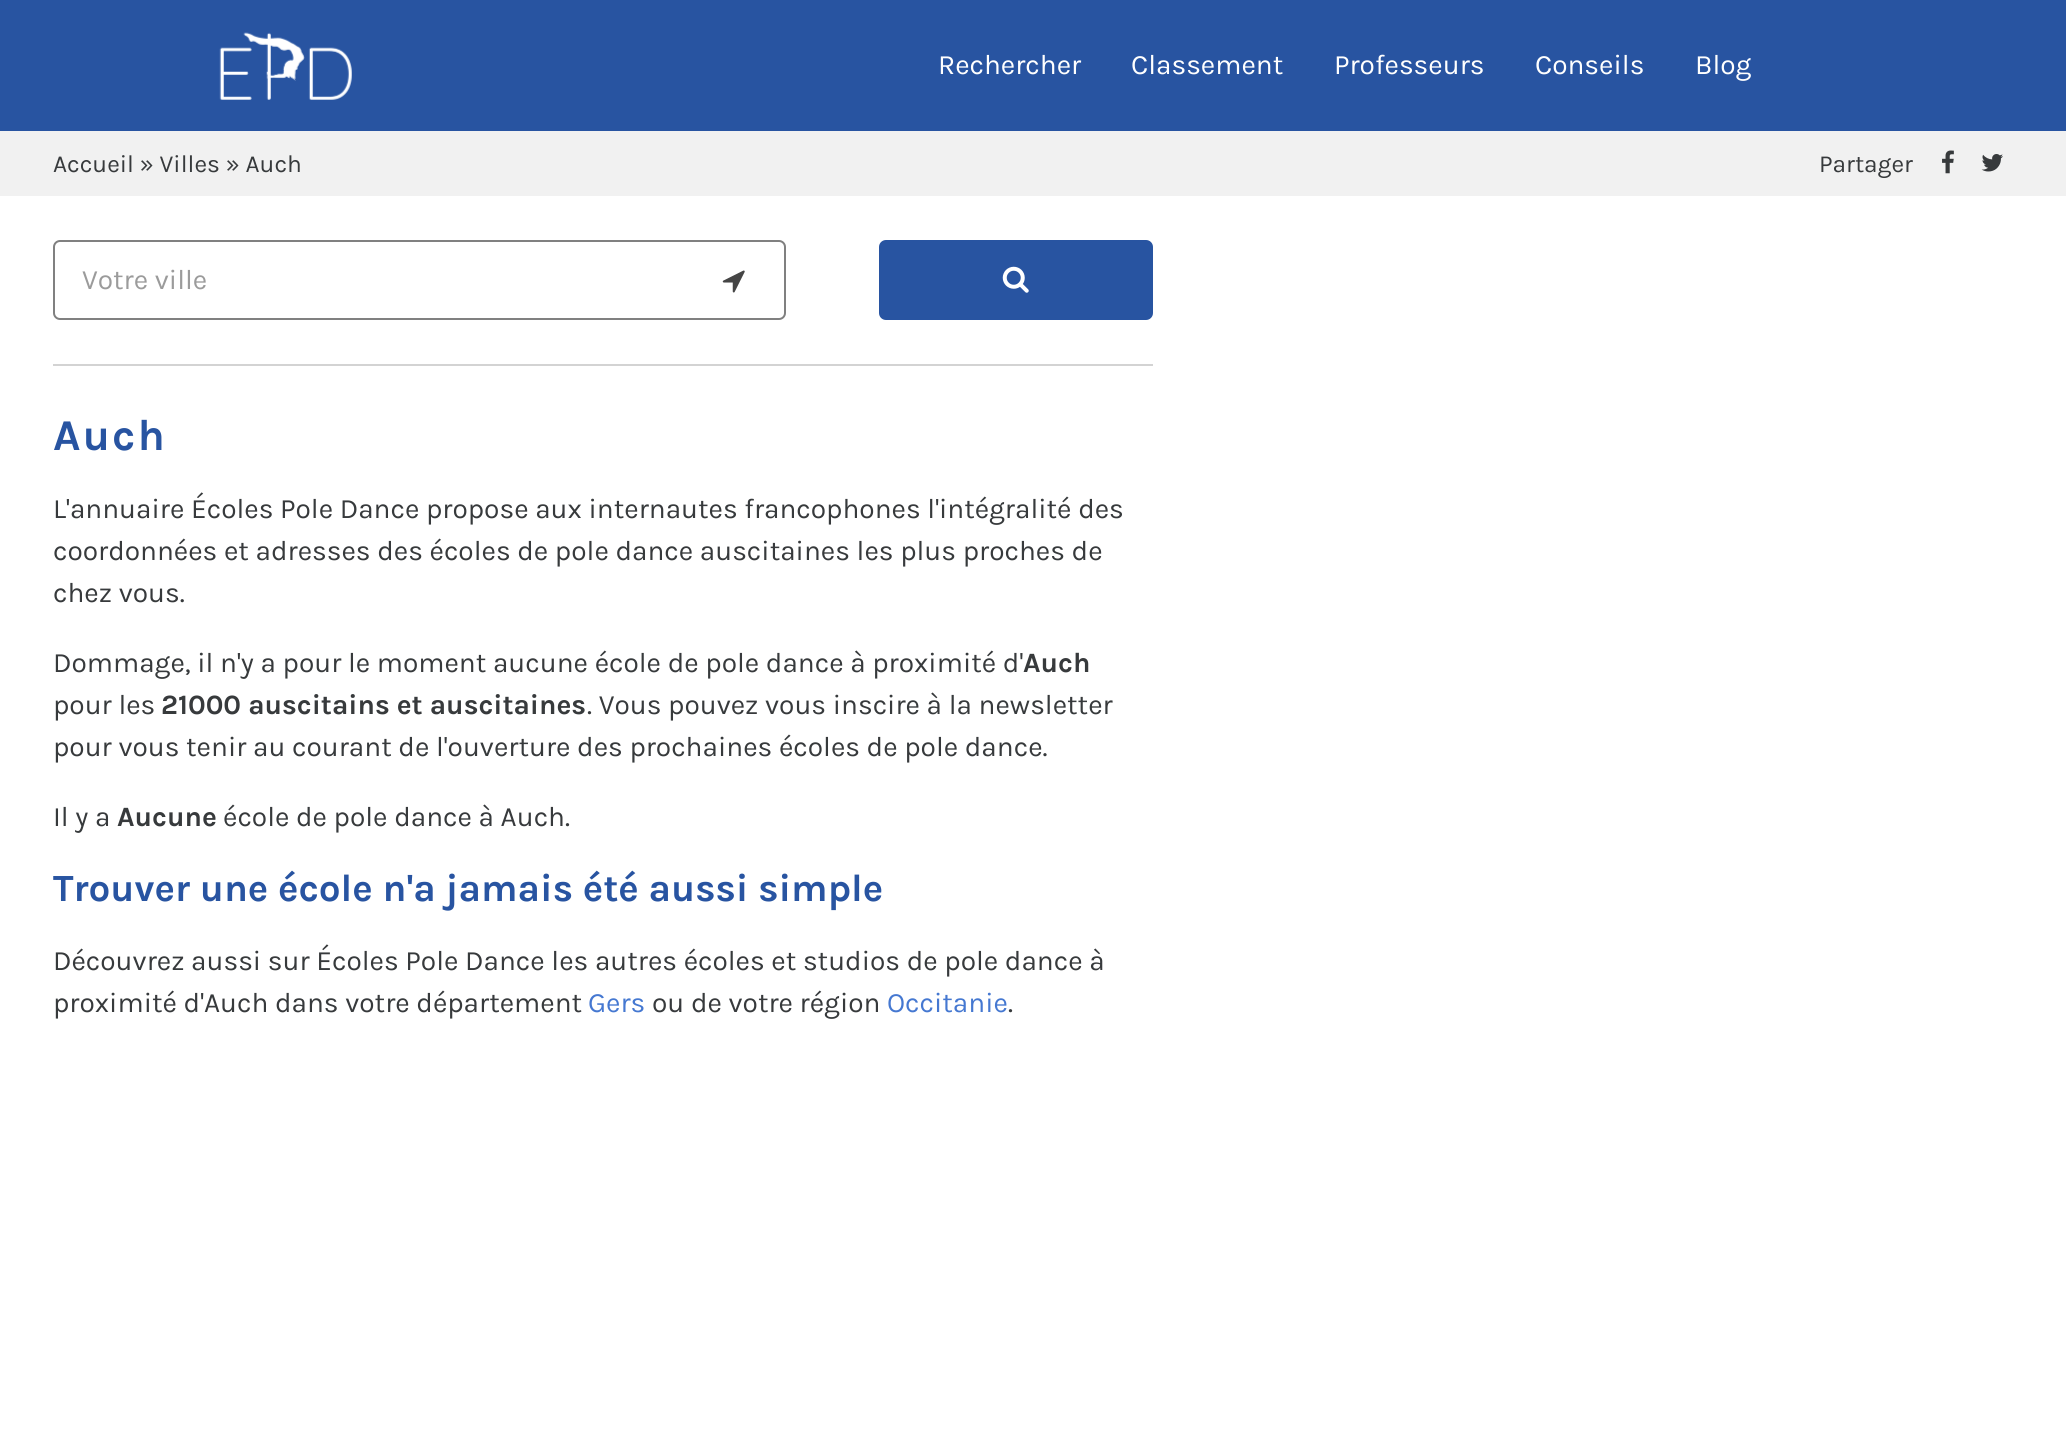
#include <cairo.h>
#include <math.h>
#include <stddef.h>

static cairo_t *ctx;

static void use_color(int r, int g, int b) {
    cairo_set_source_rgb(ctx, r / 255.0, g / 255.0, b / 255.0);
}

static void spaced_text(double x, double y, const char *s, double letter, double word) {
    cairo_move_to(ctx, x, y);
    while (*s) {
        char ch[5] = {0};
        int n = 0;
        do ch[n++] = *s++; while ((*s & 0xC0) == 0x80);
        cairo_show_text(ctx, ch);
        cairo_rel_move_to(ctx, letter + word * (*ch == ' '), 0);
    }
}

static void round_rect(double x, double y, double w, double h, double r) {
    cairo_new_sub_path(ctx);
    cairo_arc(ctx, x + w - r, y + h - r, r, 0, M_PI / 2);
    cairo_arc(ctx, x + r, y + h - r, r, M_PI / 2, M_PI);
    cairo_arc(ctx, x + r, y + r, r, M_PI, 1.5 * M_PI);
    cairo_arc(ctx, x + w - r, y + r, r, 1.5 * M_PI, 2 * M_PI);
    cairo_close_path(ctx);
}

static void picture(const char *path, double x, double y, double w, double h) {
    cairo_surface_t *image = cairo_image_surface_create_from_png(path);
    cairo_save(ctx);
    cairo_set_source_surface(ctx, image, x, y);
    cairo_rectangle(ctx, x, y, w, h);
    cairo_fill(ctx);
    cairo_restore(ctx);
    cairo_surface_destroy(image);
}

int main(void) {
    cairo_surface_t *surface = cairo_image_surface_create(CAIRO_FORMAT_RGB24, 2066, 1452);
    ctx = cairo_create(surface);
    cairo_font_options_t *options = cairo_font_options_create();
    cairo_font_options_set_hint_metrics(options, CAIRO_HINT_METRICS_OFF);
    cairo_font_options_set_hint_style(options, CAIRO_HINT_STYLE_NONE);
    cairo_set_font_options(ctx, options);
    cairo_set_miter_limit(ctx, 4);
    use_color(255, 255, 255);
    cairo_paint(ctx);
    use_color(40, 84, 161);
    cairo_rectangle(ctx, 0, 0, 2066, 131);
    cairo_fill(ctx);
    picture("img1.png", 219, 32, 133, 68);
    cairo_select_font_face(ctx, "Karla", CAIRO_FONT_SLANT_NORMAL, CAIRO_FONT_WEIGHT_NORMAL);
    cairo_set_font_size(ctx, 28);
    use_color(255, 255, 255);
    cairo_move_to(ctx, 938, 74);
    cairo_show_text(ctx, "Rechercher");
    cairo_move_to(ctx, 1131, 74);
    cairo_show_text(ctx, "Classement");
    cairo_move_to(ctx, 1334, 74);
    cairo_show_text(ctx, "Professeurs");
    cairo_move_to(ctx, 1535, 74);
    cairo_show_text(ctx, "Conseils");
    cairo_move_to(ctx, 1695, 74);
    cairo_show_text(ctx, "Blog");
    use_color(241, 241, 241);
    cairo_rectangle(ctx, 0, 131, 2066, 65);
    cairo_fill(ctx);
    cairo_set_font_size(ctx, 24.5);
    use_color(55, 58, 60);
    cairo_move_to(ctx, 53, 172);
    cairo_show_text(ctx, "Accueil » Villes » Auch");
    cairo_move_to(ctx, 1819, 172);
    cairo_show_text(ctx, "Partager");
    picture("img2.png", 1942, 150, 12, 24);
    picture("img3.png", 1981, 154, 22, 18);
    round_rect(54, 241, 731, 78, 6);
    use_color(128, 128, 128);
    cairo_stroke(ctx);
    cairo_set_font_size(ctx, 28);
    use_color(155, 155, 155);
    cairo_move_to(ctx, 82, 289);
    cairo_show_text(ctx, "Votre ville");
    picture("img4.png", 722, 270, 23, 23);
    use_color(40, 84, 161);
    round_rect(880, 241, 272, 78, 6);
    cairo_fill_preserve(ctx);
    cairo_stroke(ctx);
    picture("img5.png", 1002, 266, 27, 27);
    use_color(211, 211, 211);
    cairo_rectangle(ctx, 53, 364, 1100, 2);
    cairo_fill(ctx);
    cairo_select_font_face(ctx, "Karla", CAIRO_FONT_SLANT_NORMAL, CAIRO_FONT_WEIGHT_BOLD);
    cairo_set_font_size(ctx, 44);
    use_color(40, 84, 161);
    spaced_text(53, 450, "Auch", 2, 0);
    cairo_select_font_face(ctx, "Karla", CAIRO_FONT_SLANT_NORMAL, CAIRO_FONT_WEIGHT_NORMAL);
    cairo_set_font_size(ctx, 28);
    use_color(55, 58, 60);
    cairo_move_to(ctx, 53, 518);
    cairo_show_text(ctx, "L'annuaire Écoles Pole Dance propose aux internautes francophones l'intégralité des");
    cairo_move_to(ctx, 53, 560);
    cairo_show_text(ctx, "coordonnées et adresses des écoles de pole dance auscitaines les plus proches de");
    cairo_move_to(ctx, 53, 602);
    cairo_show_text(ctx, "chez vous.");
    cairo_move_to(ctx, 53, 672);
    cairo_show_text(ctx, "Dommage, il n'y a pour le moment aucune école de pole dance à proximité d'");
    cairo_select_font_face(ctx, "Karla", CAIRO_FONT_SLANT_NORMAL, CAIRO_FONT_WEIGHT_BOLD);
    cairo_move_to(ctx, 1023, 672);
    cairo_show_text(ctx, "Auch");
    cairo_select_font_face(ctx, "Karla", CAIRO_FONT_SLANT_NORMAL, CAIRO_FONT_WEIGHT_NORMAL);
    cairo_move_to(ctx, 53, 714);
    cairo_show_text(ctx, "pour les");
    cairo_select_font_face(ctx, "Karla", CAIRO_FONT_SLANT_NORMAL, CAIRO_FONT_WEIGHT_BOLD);
    cairo_move_to(ctx, 161, 714);
    cairo_show_text(ctx, "21000 auscitains et auscitaines");
    cairo_select_font_face(ctx, "Karla", CAIRO_FONT_SLANT_NORMAL, CAIRO_FONT_WEIGHT_NORMAL);
    cairo_move_to(ctx, 587, 714);
    cairo_show_text(ctx, ". Vous pouvez vous inscire à la newsletter");
    cairo_move_to(ctx, 53, 756);
    cairo_show_text(ctx, "pour vous tenir au courant de l'ouverture des prochaines écoles de pole dance.");
    cairo_move_to(ctx, 53, 826);
    cairo_show_text(ctx, "Il y a");
    cairo_select_font_face(ctx, "Karla", CAIRO_FONT_SLANT_NORMAL, CAIRO_FONT_WEIGHT_BOLD);
    cairo_move_to(ctx, 117, 826);
    cairo_show_text(ctx, "Aucune");
    cairo_select_font_face(ctx, "Karla", CAIRO_FONT_SLANT_NORMAL, CAIRO_FONT_WEIGHT_NORMAL);
    cairo_move_to(ctx, 223, 826);
    cairo_show_text(ctx, "école de pole dance à Auch.");
    cairo_select_font_face(ctx, "Karla", CAIRO_FONT_SLANT_NORMAL, CAIRO_FONT_WEIGHT_BOLD);
    cairo_set_font_size(ctx, 38.5);
    use_color(40, 84, 161);
    cairo_move_to(ctx, 53, 901);
    cairo_show_text(ctx, "Trouver une école n'a jamais été aussi simple");
    cairo_select_font_face(ctx, "Karla", CAIRO_FONT_SLANT_NORMAL, CAIRO_FONT_WEIGHT_NORMAL);
    cairo_set_font_size(ctx, 28);
    use_color(55, 58, 60);
    cairo_move_to(ctx, 53, 970);
    cairo_show_text(ctx, "Découvrez aussi sur Écoles Pole Dance les autres écoles et studios de pole dance à");
    cairo_move_to(ctx, 53, 1012);
    cairo_show_text(ctx, "proximité d'Auch dans votre département");
    use_color(69, 120, 209);
    cairo_move_to(ctx, 588, 1012);
    cairo_show_text(ctx, "Gers");
    use_color(55, 58, 60);
    cairo_move_to(ctx, 652, 1012);
    cairo_show_text(ctx, "ou de votre région");
    use_color(69, 120, 209);
    cairo_move_to(ctx, 887, 1012);
    cairo_show_text(ctx, "Occitanie");
    use_color(55, 58, 60);
    cairo_move_to(ctx, 1008, 1012);
    cairo_show_text(ctx, ".");
    cairo_surface_write_to_png(surface, "result.png");
    cairo_font_options_destroy(options);
    cairo_destroy(ctx);
    cairo_surface_destroy(surface);
    return 0;
}
